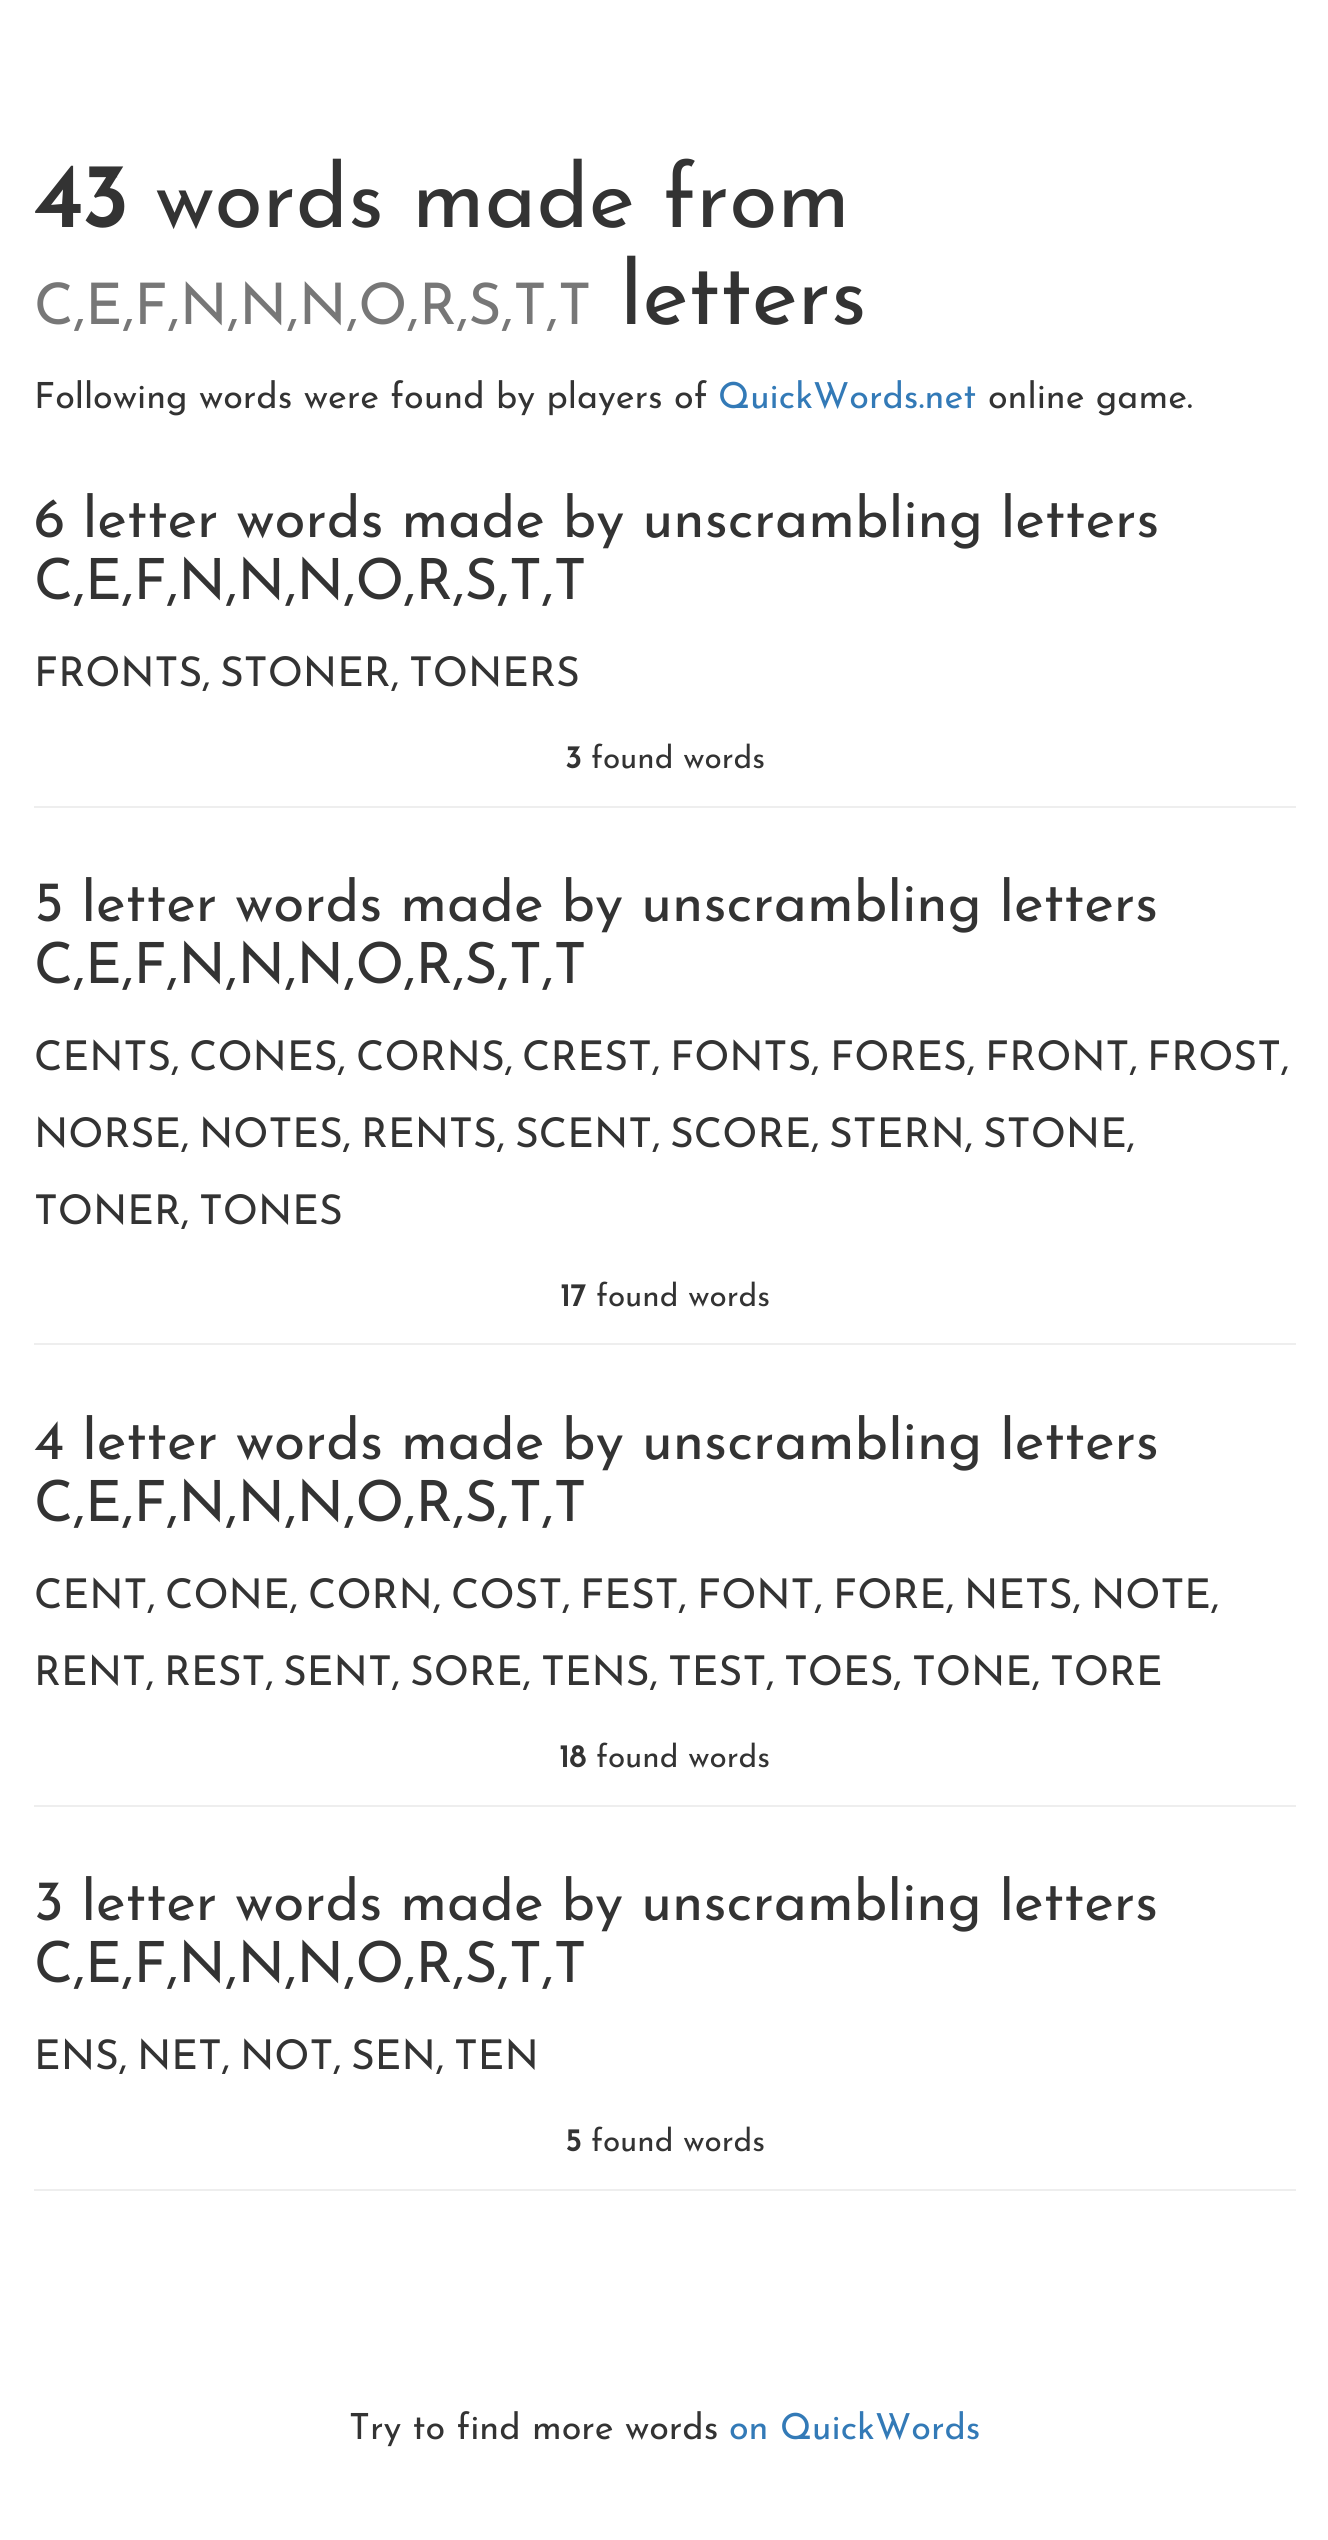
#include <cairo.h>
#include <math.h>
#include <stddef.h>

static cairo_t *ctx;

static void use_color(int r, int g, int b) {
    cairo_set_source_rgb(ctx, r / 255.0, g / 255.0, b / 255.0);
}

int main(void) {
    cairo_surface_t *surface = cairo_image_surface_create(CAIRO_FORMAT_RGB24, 1328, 2540);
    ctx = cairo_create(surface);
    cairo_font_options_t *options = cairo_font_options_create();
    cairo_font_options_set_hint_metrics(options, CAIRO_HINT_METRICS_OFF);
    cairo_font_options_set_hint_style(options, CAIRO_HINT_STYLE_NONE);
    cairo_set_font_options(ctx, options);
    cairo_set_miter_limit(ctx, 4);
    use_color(255, 255, 255);
    cairo_paint(ctx);
    cairo_select_font_face(ctx, "Josefin Sans", CAIRO_FONT_SLANT_NORMAL, CAIRO_FONT_WEIGHT_BOLD);
    cairo_set_font_size(ctx, 88.25);
    use_color(51, 51, 51);
    cairo_move_to(ctx, 34, 227);
    cairo_show_text(ctx, "43");
    cairo_select_font_face(ctx, "Josefin Sans Thin", CAIRO_FONT_SLANT_NORMAL, CAIRO_FONT_WEIGHT_NORMAL);
    cairo_move_to(ctx, 155, 227);
    cairo_show_text(ctx, "words made from");
    cairo_set_font_size(ctx, 57.25);
    use_color(119, 119, 119);
    cairo_move_to(ctx, 34, 324);
    cairo_show_text(ctx, "C,E,F,N,N,N,O,R,S,T,T");
    cairo_set_font_size(ctx, 88.25);
    use_color(51, 51, 51);
    cairo_move_to(ctx, 620, 324);
    cairo_show_text(ctx, "letters");
    cairo_set_font_size(ctx, 36);
    cairo_move_to(ctx, 34, 408);
    cairo_show_text(ctx, "Following words were found by players of");
    use_color(51, 122, 183);
    cairo_move_to(ctx, 718, 408);
    cairo_show_text(ctx, "QuickWords.net");
    use_color(51, 51, 51);
    cairo_move_to(ctx, 988, 408);
    cairo_show_text(ctx, "online game.");
    cairo_set_font_size(ctx, 56.75);
    cairo_move_to(ctx, 34, 537);
    cairo_show_text(ctx, "6 letter words made by unscrambling letters");
    cairo_move_to(ctx, 34, 599);
    cairo_show_text(ctx, "C,E,F,N,N,N,O,R,S,T,T");
    cairo_set_font_size(ctx, 41);
    cairo_move_to(ctx, 34, 686);
    cairo_show_text(ctx, "FRONTS,");
    cairo_move_to(ctx, 220, 686);
    cairo_show_text(ctx, "STONER,");
    cairo_move_to(ctx, 409, 686);
    cairo_show_text(ctx, "TONERS");
    use_color(238, 238, 238);
    cairo_rectangle(ctx, 34, 806, 1262, 2);
    cairo_fill(ctx);
    cairo_select_font_face(ctx, "Josefin Sans", CAIRO_FONT_SLANT_NORMAL, CAIRO_FONT_WEIGHT_BOLD);
    cairo_set_font_size(ctx, 31.5);
    use_color(51, 51, 51);
    cairo_move_to(ctx, 565, 768);
    cairo_show_text(ctx, "3");
    cairo_select_font_face(ctx, "Josefin Sans Thin", CAIRO_FONT_SLANT_NORMAL, CAIRO_FONT_WEIGHT_NORMAL);
    cairo_move_to(ctx, 591, 768);
    cairo_show_text(ctx, "found words");
    cairo_set_font_size(ctx, 56.75);
    cairo_move_to(ctx, 34, 921);
    cairo_show_text(ctx, "5 letter words made by unscrambling letters");
    cairo_move_to(ctx, 34, 983);
    cairo_show_text(ctx, "C,E,F,N,N,N,O,R,S,T,T");
    cairo_set_font_size(ctx, 41);
    cairo_move_to(ctx, 34, 1070);
    cairo_show_text(ctx, "CENTS,");
    cairo_move_to(ctx, 189, 1070);
    cairo_show_text(ctx, "CONES,");
    cairo_move_to(ctx, 356, 1070);
    cairo_show_text(ctx, "CORNS,");
    cairo_move_to(ctx, 522, 1070);
    cairo_show_text(ctx, "CREST,");
    cairo_move_to(ctx, 670, 1070);
    cairo_show_text(ctx, "FONTS,");
    cairo_move_to(ctx, 830, 1070);
    cairo_show_text(ctx, "FORES,");
    cairo_move_to(ctx, 985, 1070);
    cairo_show_text(ctx, "FRONT,");
    cairo_move_to(ctx, 1147, 1070);
    cairo_show_text(ctx, "FROST,");
    cairo_move_to(ctx, 34, 1147);
    cairo_show_text(ctx, "NORSE,");
    cairo_move_to(ctx, 199, 1147);
    cairo_show_text(ctx, "NOTES,");
    cairo_move_to(ctx, 361, 1147);
    cairo_show_text(ctx, "RENTS,");
    cairo_move_to(ctx, 515, 1147);
    cairo_show_text(ctx, "SCENT,");
    cairo_move_to(ctx, 670, 1147);
    cairo_show_text(ctx, "SCORE,");
    cairo_move_to(ctx, 829, 1147);
    cairo_show_text(ctx, "STERN,");
    cairo_move_to(ctx, 983, 1147);
    cairo_show_text(ctx, "STONE,");
    cairo_move_to(ctx, 34, 1224);
    cairo_show_text(ctx, "TONER,");
    cairo_move_to(ctx, 199, 1224);
    cairo_show_text(ctx, "TONES");
    use_color(238, 238, 238);
    cairo_rectangle(ctx, 34, 1343, 1262, 2);
    cairo_fill(ctx);
    cairo_select_font_face(ctx, "Josefin Sans", CAIRO_FONT_SLANT_NORMAL, CAIRO_FONT_WEIGHT_BOLD);
    cairo_set_font_size(ctx, 31.5);
    use_color(51, 51, 51);
    cairo_move_to(ctx, 560, 1306);
    cairo_show_text(ctx, "17");
    cairo_select_font_face(ctx, "Josefin Sans Thin", CAIRO_FONT_SLANT_NORMAL, CAIRO_FONT_WEIGHT_NORMAL);
    cairo_move_to(ctx, 596, 1306);
    cairo_show_text(ctx, "found words");
    cairo_set_font_size(ctx, 56.75);
    cairo_move_to(ctx, 34, 1459);
    cairo_show_text(ctx, "4 letter words made by unscrambling letters");
    cairo_move_to(ctx, 34, 1521);
    cairo_show_text(ctx, "C,E,F,N,N,N,O,R,S,T,T");
    cairo_set_font_size(ctx, 41);
    cairo_move_to(ctx, 34, 1608);
    cairo_show_text(ctx, "CENT,");
    cairo_move_to(ctx, 165, 1608);
    cairo_show_text(ctx, "CONE,");
    cairo_move_to(ctx, 308, 1608);
    cairo_show_text(ctx, "CORN,");
    cairo_move_to(ctx, 451, 1608);
    cairo_show_text(ctx, "COST,");
    cairo_move_to(ctx, 580, 1608);
    cairo_show_text(ctx, "FEST,");
    cairo_move_to(ctx, 697, 1608);
    cairo_show_text(ctx, "FONT,");
    cairo_move_to(ctx, 833, 1608);
    cairo_show_text(ctx, "FORE,");
    cairo_move_to(ctx, 964, 1608);
    cairo_show_text(ctx, "NETS,");
    cairo_move_to(ctx, 1091, 1608);
    cairo_show_text(ctx, "NOTE,");
    cairo_move_to(ctx, 34, 1685);
    cairo_show_text(ctx, "RENT,");
    cairo_move_to(ctx, 164, 1685);
    cairo_show_text(ctx, "REST,");
    cairo_move_to(ctx, 283, 1685);
    cairo_show_text(ctx, "SENT,");
    cairo_move_to(ctx, 410, 1685);
    cairo_show_text(ctx, "SORE,");
    cairo_move_to(ctx, 541, 1685);
    cairo_show_text(ctx, "TENS,");
    cairo_move_to(ctx, 668, 1685);
    cairo_show_text(ctx, "TEST,");
    cairo_move_to(ctx, 784, 1685);
    cairo_show_text(ctx, "TOES,");
    cairo_move_to(ctx, 912, 1685);
    cairo_show_text(ctx, "TONE,");
    cairo_move_to(ctx, 1050, 1685);
    cairo_show_text(ctx, "TORE");
    use_color(238, 238, 238);
    cairo_rectangle(ctx, 34, 1805, 1262, 2);
    cairo_fill(ctx);
    cairo_select_font_face(ctx, "Josefin Sans", CAIRO_FONT_SLANT_NORMAL, CAIRO_FONT_WEIGHT_BOLD);
    cairo_set_font_size(ctx, 31.5);
    use_color(51, 51, 51);
    cairo_move_to(ctx, 559, 1767);
    cairo_show_text(ctx, "18");
    cairo_select_font_face(ctx, "Josefin Sans Thin", CAIRO_FONT_SLANT_NORMAL, CAIRO_FONT_WEIGHT_NORMAL);
    cairo_move_to(ctx, 596, 1767);
    cairo_show_text(ctx, "found words");
    cairo_set_font_size(ctx, 56.75);
    cairo_move_to(ctx, 34, 1920);
    cairo_show_text(ctx, "3 letter words made by unscrambling letters");
    cairo_move_to(ctx, 34, 1982);
    cairo_show_text(ctx, "C,E,F,N,N,N,O,R,S,T,T");
    cairo_set_font_size(ctx, 41);
    cairo_move_to(ctx, 34, 2069);
    cairo_show_text(ctx, "ENS,");
    cairo_move_to(ctx, 137, 2069);
    cairo_show_text(ctx, "NET,");
    cairo_move_to(ctx, 240, 2069);
    cairo_show_text(ctx, "NOT,");
    cairo_move_to(ctx, 351, 2069);
    cairo_show_text(ctx, "SEN,");
    cairo_move_to(ctx, 454, 2069);
    cairo_show_text(ctx, "TEN");
    use_color(238, 238, 238);
    cairo_rectangle(ctx, 34, 2189, 1262, 2);
    cairo_fill(ctx);
    cairo_select_font_face(ctx, "Josefin Sans", CAIRO_FONT_SLANT_NORMAL, CAIRO_FONT_WEIGHT_BOLD);
    cairo_set_font_size(ctx, 31.5);
    use_color(51, 51, 51);
    cairo_move_to(ctx, 565, 2151);
    cairo_show_text(ctx, "5");
    cairo_select_font_face(ctx, "Josefin Sans Thin", CAIRO_FONT_SLANT_NORMAL, CAIRO_FONT_WEIGHT_NORMAL);
    cairo_move_to(ctx, 591, 2151);
    cairo_show_text(ctx, "found words");
    cairo_set_font_size(ctx, 36);
    cairo_move_to(ctx, 349, 2439);
    cairo_show_text(ctx, "Try to find more words");
    use_color(51, 122, 183);
    cairo_move_to(ctx, 729, 2439);
    cairo_show_text(ctx, "on QuickWords");
    cairo_surface_write_to_png(surface, "result.png");
    cairo_font_options_destroy(options);
    cairo_destroy(ctx);
    cairo_surface_destroy(surface);
    return 0;
}
